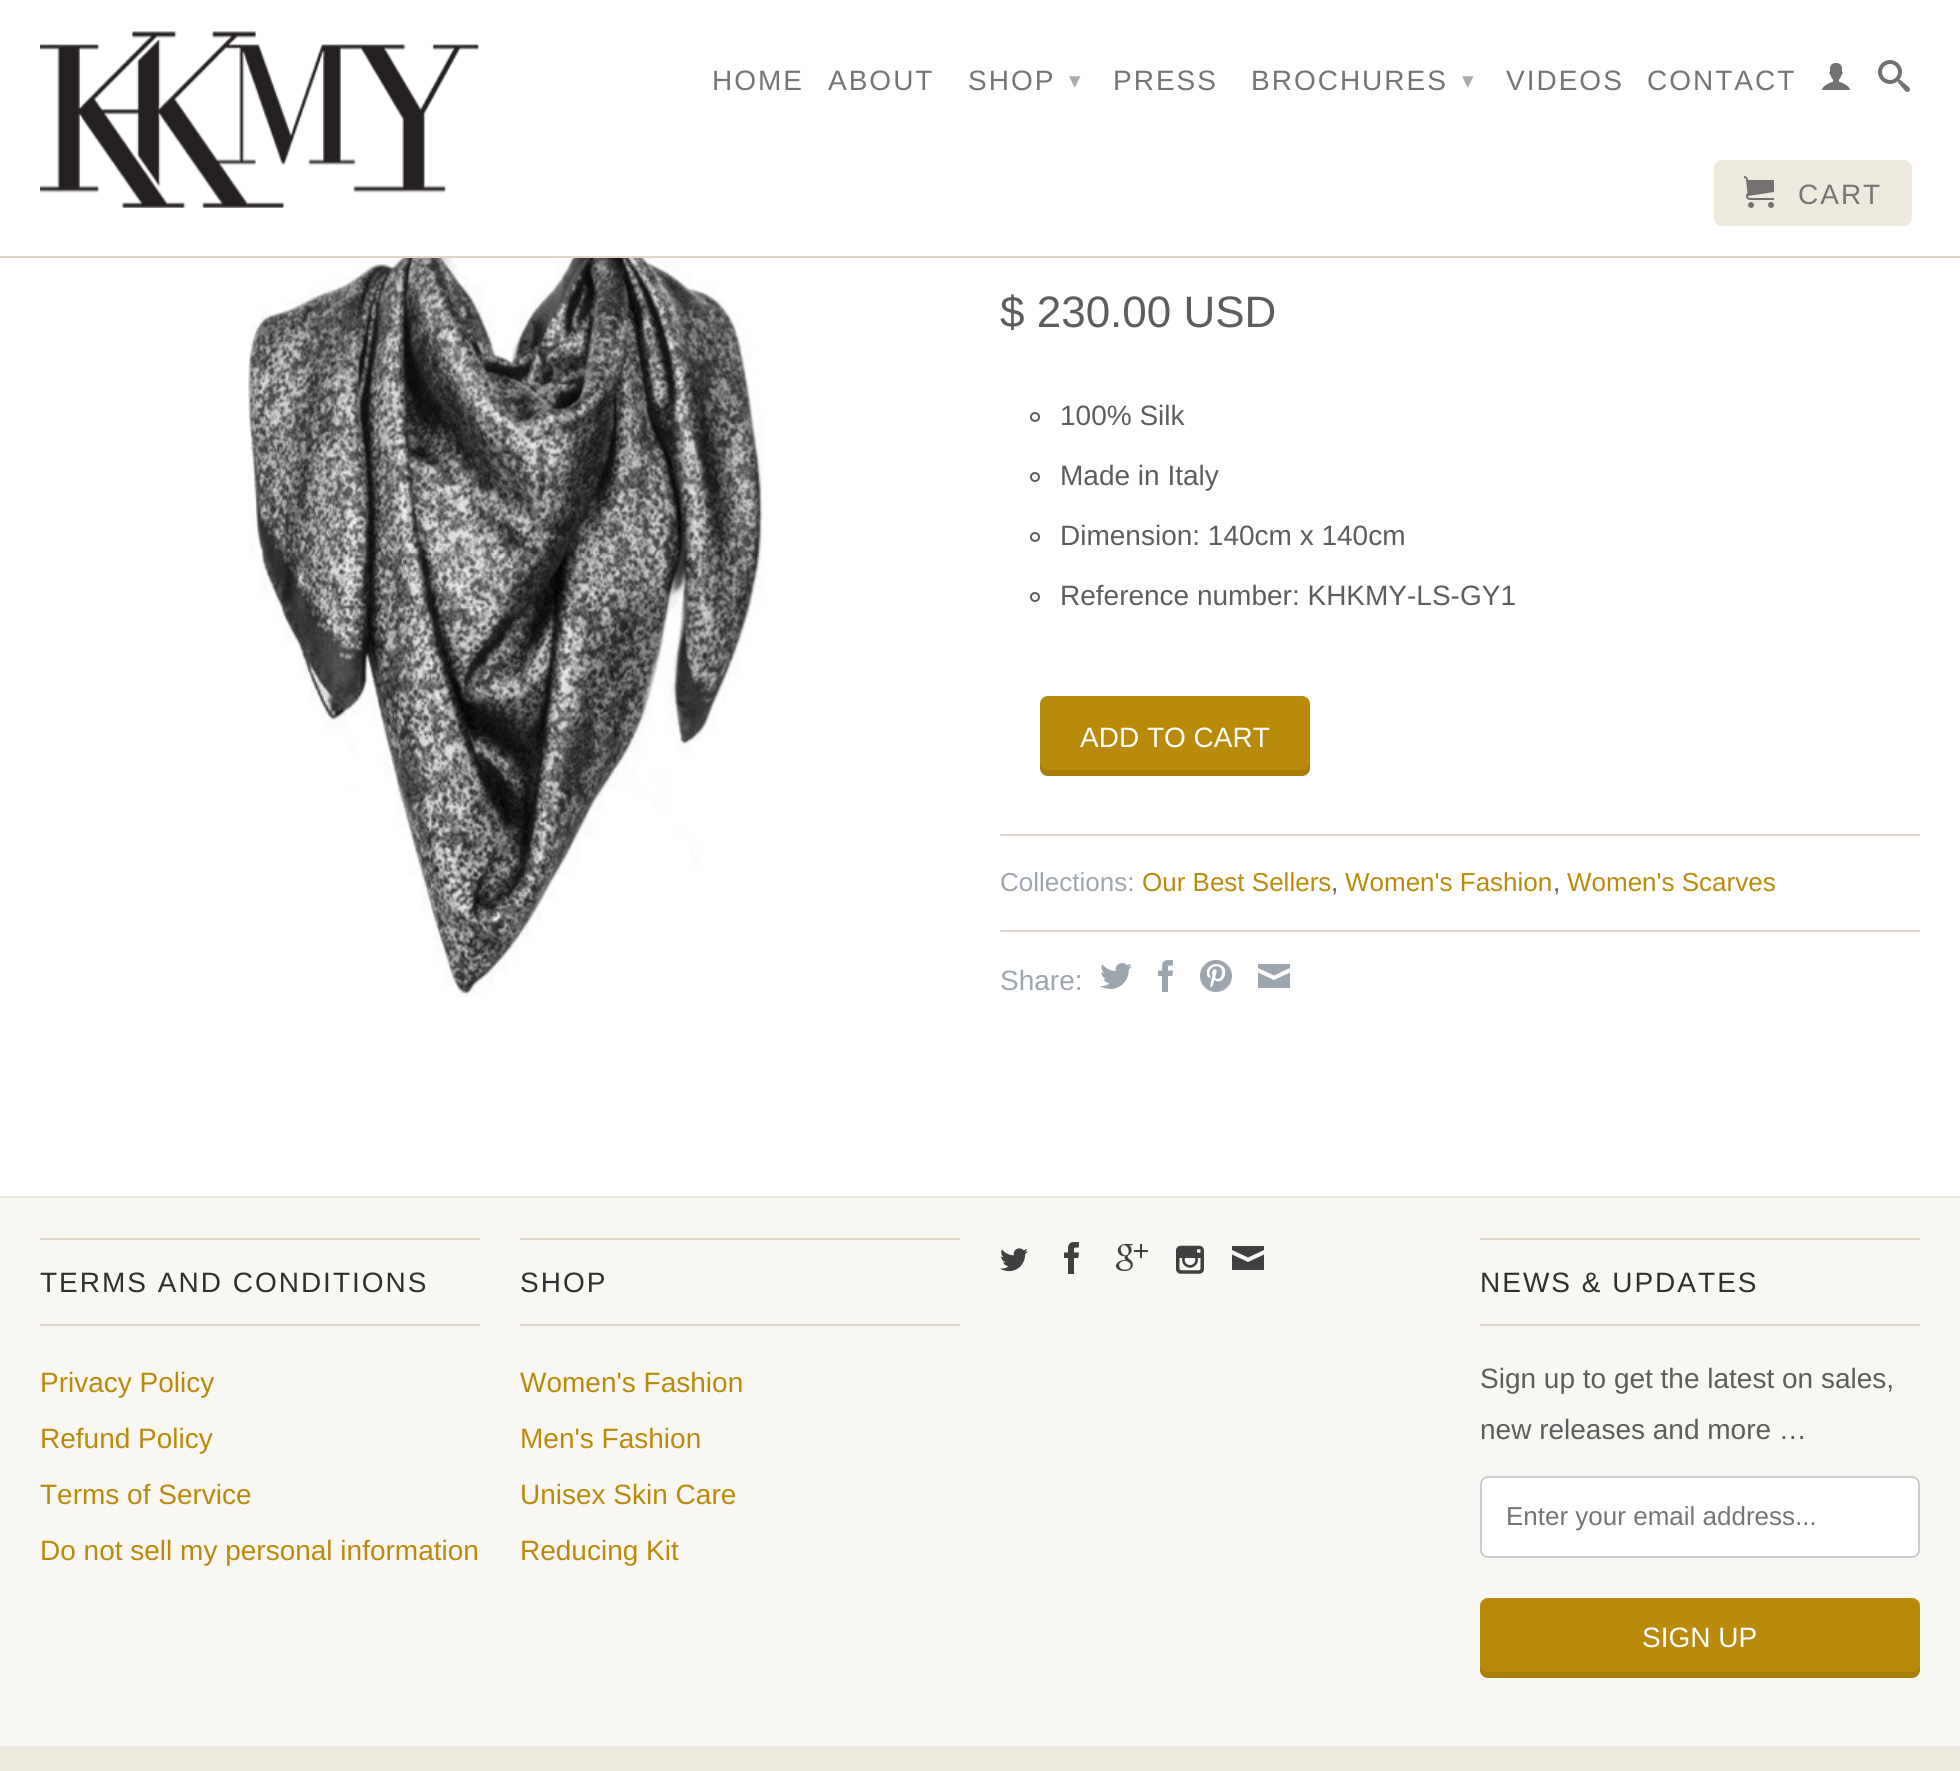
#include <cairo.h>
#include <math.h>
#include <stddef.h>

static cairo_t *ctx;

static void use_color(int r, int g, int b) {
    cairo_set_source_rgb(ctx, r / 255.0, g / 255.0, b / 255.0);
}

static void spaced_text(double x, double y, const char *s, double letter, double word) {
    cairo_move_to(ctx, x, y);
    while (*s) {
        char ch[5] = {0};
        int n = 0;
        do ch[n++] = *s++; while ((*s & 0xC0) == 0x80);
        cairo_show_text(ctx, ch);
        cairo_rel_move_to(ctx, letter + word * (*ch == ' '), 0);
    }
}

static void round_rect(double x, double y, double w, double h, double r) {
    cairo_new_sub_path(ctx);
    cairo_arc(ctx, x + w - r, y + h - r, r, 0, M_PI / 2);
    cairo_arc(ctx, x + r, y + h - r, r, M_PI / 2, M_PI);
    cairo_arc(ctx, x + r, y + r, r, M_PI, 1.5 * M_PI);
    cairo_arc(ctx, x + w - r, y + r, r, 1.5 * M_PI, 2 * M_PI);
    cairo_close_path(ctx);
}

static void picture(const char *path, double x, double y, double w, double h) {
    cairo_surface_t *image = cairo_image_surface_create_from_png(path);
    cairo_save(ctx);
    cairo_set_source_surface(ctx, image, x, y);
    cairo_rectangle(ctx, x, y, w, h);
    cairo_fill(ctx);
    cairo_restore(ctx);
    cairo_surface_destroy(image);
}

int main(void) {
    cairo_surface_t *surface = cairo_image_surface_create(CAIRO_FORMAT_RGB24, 1960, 1771);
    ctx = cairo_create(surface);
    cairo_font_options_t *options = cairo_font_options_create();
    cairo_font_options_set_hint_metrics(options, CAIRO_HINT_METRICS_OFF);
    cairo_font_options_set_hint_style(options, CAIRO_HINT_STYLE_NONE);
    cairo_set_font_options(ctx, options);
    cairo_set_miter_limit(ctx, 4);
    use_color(255, 255, 255);
    cairo_paint(ctx);
    use_color(222, 214, 199);
    cairo_rectangle(ctx, 0, 256, 1960, 2);
    cairo_fill(ctx);
    picture("img1.png", 40, 31, 439, 177);
    cairo_select_font_face(ctx, "Liberation Sans", CAIRO_FONT_SLANT_NORMAL, CAIRO_FONT_WEIGHT_NORMAL);
    cairo_set_font_size(ctx, 28);
    use_color(117, 117, 117);
    spaced_text(712, 90, "HOME", 2, 0);
    spaced_text(828, 90, "ABOUT", 2, 0);
    spaced_text(968, 90, "SHOP", 2, 0);
    cairo_select_font_face(ctx, "DejaVu Sans", CAIRO_FONT_SLANT_NORMAL, CAIRO_FONT_WEIGHT_NORMAL);
    cairo_set_font_size(ctx, 23);
    use_color(171, 170, 170);
    spaced_text(1069, 88, "▾", 2, 0);
    cairo_select_font_face(ctx, "Liberation Sans", CAIRO_FONT_SLANT_NORMAL, CAIRO_FONT_WEIGHT_NORMAL);
    cairo_set_font_size(ctx, 28);
    use_color(117, 117, 117);
    spaced_text(1113, 90, "PRESS", 2, 0);
    spaced_text(1251, 90, "BROCHURES", 2, 0);
    cairo_select_font_face(ctx, "DejaVu Sans", CAIRO_FONT_SLANT_NORMAL, CAIRO_FONT_WEIGHT_NORMAL);
    cairo_set_font_size(ctx, 23);
    use_color(171, 170, 170);
    spaced_text(1462, 88, "▾", 2, 0);
    cairo_select_font_face(ctx, "Liberation Sans", CAIRO_FONT_SLANT_NORMAL, CAIRO_FONT_WEIGHT_NORMAL);
    cairo_set_font_size(ctx, 28);
    use_color(117, 117, 117);
    spaced_text(1506, 90, "VIDEOS", 2, 0);
    spaced_text(1647, 90, "CONTACT", 2, 0);
    picture("img2.png", 1822, 63, 28, 27);
    picture("img3.png", 1878, 60, 32, 32);
    use_color(237, 233, 221);
    round_rect(1714, 160, 198, 66, 8);
    cairo_fill(ctx);
    picture("img4.png", 1744, 176, 30, 32);
    use_color(117, 117, 117);
    spaced_text(1798, 204, "CART", 2, 0);
    picture("img5.png", 248, 258, 516, 739);
    cairo_set_font_size(ctx, 44);
    use_color(94, 92, 92);
    cairo_move_to(ctx, 1000, 327);
    cairo_show_text(ctx, "$ 230.00 USD");
    cairo_new_path(ctx);
    cairo_arc(ctx, 1035, 417, 4, 0, 2 * M_PI);
    cairo_stroke(ctx);
    cairo_set_font_size(ctx, 28);
    cairo_move_to(ctx, 1060, 425);
    cairo_show_text(ctx, "100% Silk");
    cairo_new_path(ctx);
    cairo_arc(ctx, 1035, 477, 4, 0, 2 * M_PI);
    cairo_stroke(ctx);
    cairo_move_to(ctx, 1060, 485);
    cairo_show_text(ctx, "Made in Italy");
    cairo_new_path(ctx);
    cairo_arc(ctx, 1035, 537, 4, 0, 2 * M_PI);
    cairo_stroke(ctx);
    cairo_move_to(ctx, 1060, 545);
    cairo_show_text(ctx, "Dimension: 140cm x 140cm");
    cairo_new_path(ctx);
    cairo_arc(ctx, 1035, 597, 4, 0, 2 * M_PI);
    cairo_stroke(ctx);
    cairo_move_to(ctx, 1060, 605);
    cairo_show_text(ctx, "Reference number: KHKMY-LS-GY1");
    use_color(186, 139, 11);
    round_rect(1040, 696, 270, 80, 8);
    cairo_fill(ctx);
    cairo_set_source_rgba(ctx, 0, 0, 0, 0.1);
    cairo_new_path(ctx);
    cairo_move_to(ctx, 1040, 762);
    cairo_line_to(ctx, 1040, 768);
    cairo_curve_to(ctx, 1040, 772, 1044, 776, 1048, 776);
    cairo_line_to(ctx, 1302, 776);
    cairo_curve_to(ctx, 1306, 776, 1310, 772, 1310, 768);
    cairo_line_to(ctx, 1310, 762);
    cairo_curve_to(ctx, 1310, 766, 1306, 770, 1302, 770);
    cairo_line_to(ctx, 1048, 770);
    cairo_curve_to(ctx, 1044, 770, 1040, 766, 1040, 762);
    cairo_close_path(ctx);
    cairo_fill(ctx);
    use_color(255, 255, 255);
    cairo_move_to(ctx, 1080, 747);
    cairo_show_text(ctx, "ADD TO CART");
    use_color(222, 214, 199);
    cairo_rectangle(ctx, 1000, 834, 920, 2);
    cairo_fill(ctx);
    cairo_set_font_size(ctx, 26);
    use_color(157, 166, 174);
    cairo_move_to(ctx, 1000, 891);
    cairo_show_text(ctx, "Collections:");
    use_color(186, 139, 11);
    cairo_move_to(ctx, 1142, 891);
    cairo_show_text(ctx, "Our Best Sellers");
    use_color(94, 92, 92);
    cairo_move_to(ctx, 1331, 891);
    cairo_show_text(ctx, ",");
    use_color(186, 139, 11);
    cairo_move_to(ctx, 1345, 891);
    cairo_show_text(ctx, "Women's Fashion");
    use_color(94, 92, 92);
    cairo_move_to(ctx, 1553, 891);
    cairo_show_text(ctx, ",");
    use_color(186, 139, 11);
    cairo_move_to(ctx, 1567, 891);
    cairo_show_text(ctx, "Women's Scarves");
    use_color(222, 214, 199);
    cairo_rectangle(ctx, 1000, 930, 920, 2);
    cairo_fill(ctx);
    cairo_set_font_size(ctx, 28);
    use_color(157, 166, 174);
    cairo_move_to(ctx, 1000, 990);
    cairo_show_text(ctx, "Share:");
    cairo_new_path(ctx);
    cairo_move_to(ctx, 1274, 975.5);
    cairo_line_to(ctx, 1258, 968);
    cairo_line_to(ctx, 1258, 964);
    cairo_line_to(ctx, 1290, 964);
    cairo_line_to(ctx, 1290, 968);
    cairo_close_path(ctx);
    cairo_move_to(ctx, 1274, 980);
    cairo_line_to(ctx, 1290, 972.5);
    cairo_line_to(ctx, 1290, 988);
    cairo_line_to(ctx, 1258, 988);
    cairo_line_to(ctx, 1258, 972.5);
    cairo_close_path(ctx);
    cairo_fill(ctx);
    picture("img6.png", 1100, 963, 32, 26);
    picture("img7.png", 1158, 960, 15, 32);
    picture("img8.png", 1200, 960, 32, 32);
    use_color(249, 247, 243);
    cairo_rectangle(ctx, 0, 1198, 1960, 548);
    cairo_fill(ctx);
    use_color(237, 233, 221);
    cairo_rectangle(ctx, 0, 1196, 1960, 2);
    cairo_fill(ctx);
    picture("img9.png", 1000, 1248, 28, 24);
    picture("img10.png", 1064, 1242, 15, 32);
    picture("img11.png", 1116, 1244, 32, 27);
    picture("img12.png", 1176, 1245, 28, 29);
    use_color(64, 64, 64);
    cairo_new_path(ctx);
    cairo_move_to(ctx, 1248, 1257.5);
    cairo_line_to(ctx, 1232, 1250);
    cairo_line_to(ctx, 1232, 1246);
    cairo_line_to(ctx, 1264, 1246);
    cairo_line_to(ctx, 1264, 1250);
    cairo_close_path(ctx);
    cairo_move_to(ctx, 1248, 1262);
    cairo_line_to(ctx, 1264, 1254.5);
    cairo_line_to(ctx, 1264, 1270);
    cairo_line_to(ctx, 1232, 1270);
    cairo_line_to(ctx, 1232, 1254.5);
    cairo_close_path(ctx);
    cairo_fill(ctx);
    use_color(222, 214, 199);
    cairo_rectangle(ctx, 40, 1238, 440, 2);
    cairo_fill(ctx);
    cairo_rectangle(ctx, 40, 1324, 440, 2);
    cairo_fill(ctx);
    use_color(48, 48, 48);
    spaced_text(40, 1292, "TERMS AND CONDITIONS", 2, 0);
    use_color(186, 139, 11);
    cairo_move_to(ctx, 40, 1392);
    cairo_show_text(ctx, "Privacy Policy");
    cairo_move_to(ctx, 40, 1448);
    cairo_show_text(ctx, "Refund Policy");
    cairo_move_to(ctx, 40, 1504);
    cairo_show_text(ctx, "Terms of Service");
    cairo_move_to(ctx, 40, 1560);
    cairo_show_text(ctx, "Do not sell my personal information");
    use_color(222, 214, 199);
    cairo_rectangle(ctx, 520, 1238, 440, 2);
    cairo_fill(ctx);
    cairo_rectangle(ctx, 520, 1324, 440, 2);
    cairo_fill(ctx);
    use_color(48, 48, 48);
    spaced_text(520, 1292, "SHOP", 2, 0);
    use_color(186, 139, 11);
    cairo_move_to(ctx, 520, 1392);
    cairo_show_text(ctx, "Women's Fashion");
    cairo_move_to(ctx, 520, 1448);
    cairo_show_text(ctx, "Men's Fashion");
    cairo_move_to(ctx, 520, 1504);
    cairo_show_text(ctx, "Unisex Skin Care");
    cairo_move_to(ctx, 520, 1560);
    cairo_show_text(ctx, "Reducing Kit");
    use_color(222, 214, 199);
    cairo_rectangle(ctx, 1480, 1238, 440, 2);
    cairo_fill(ctx);
    cairo_rectangle(ctx, 1480, 1324, 440, 2);
    cairo_fill(ctx);
    use_color(48, 48, 48);
    spaced_text(1480, 1292, "NEWS & UPDATES", 2, 0);
    use_color(94, 92, 92);
    cairo_move_to(ctx, 1480, 1388);
    cairo_show_text(ctx, "Sign up to get the latest on sales,");
    cairo_move_to(ctx, 1480, 1439);
    cairo_show_text(ctx, "new releases and more …");
    use_color(255, 255, 255);
    round_rect(1481, 1477, 438, 80, 7);
    cairo_fill_preserve(ctx);
    use_color(204, 204, 204);
    cairo_stroke(ctx);
    cairo_set_font_size(ctx, 26);
    use_color(117, 117, 117);
    cairo_move_to(ctx, 1506, 1525);
    cairo_show_text(ctx, "Enter your email address...");
    use_color(186, 139, 11);
    round_rect(1480, 1598, 440, 80, 8);
    cairo_fill(ctx);
    cairo_set_source_rgba(ctx, 0, 0, 0, 0.1);
    cairo_new_path(ctx);
    cairo_move_to(ctx, 1480, 1664);
    cairo_line_to(ctx, 1480, 1670);
    cairo_curve_to(ctx, 1480, 1674, 1484, 1678, 1488, 1678);
    cairo_line_to(ctx, 1912, 1678);
    cairo_curve_to(ctx, 1916, 1678, 1920, 1674, 1920, 1670);
    cairo_line_to(ctx, 1920, 1664);
    cairo_curve_to(ctx, 1920, 1668, 1916, 1672, 1912, 1672);
    cairo_line_to(ctx, 1488, 1672);
    cairo_curve_to(ctx, 1484, 1672, 1480, 1668, 1480, 1664);
    cairo_close_path(ctx);
    cairo_fill(ctx);
    cairo_set_font_size(ctx, 28);
    use_color(255, 255, 255);
    cairo_move_to(ctx, 1642, 1647);
    cairo_show_text(ctx, "SIGN UP");
    use_color(237, 233, 221);
    cairo_rectangle(ctx, 0, 1746, 1960, 25);
    cairo_fill(ctx);
    cairo_surface_write_to_png(surface, "result.png");
    cairo_font_options_destroy(options);
    cairo_destroy(ctx);
    cairo_surface_destroy(surface);
    return 0;
}
